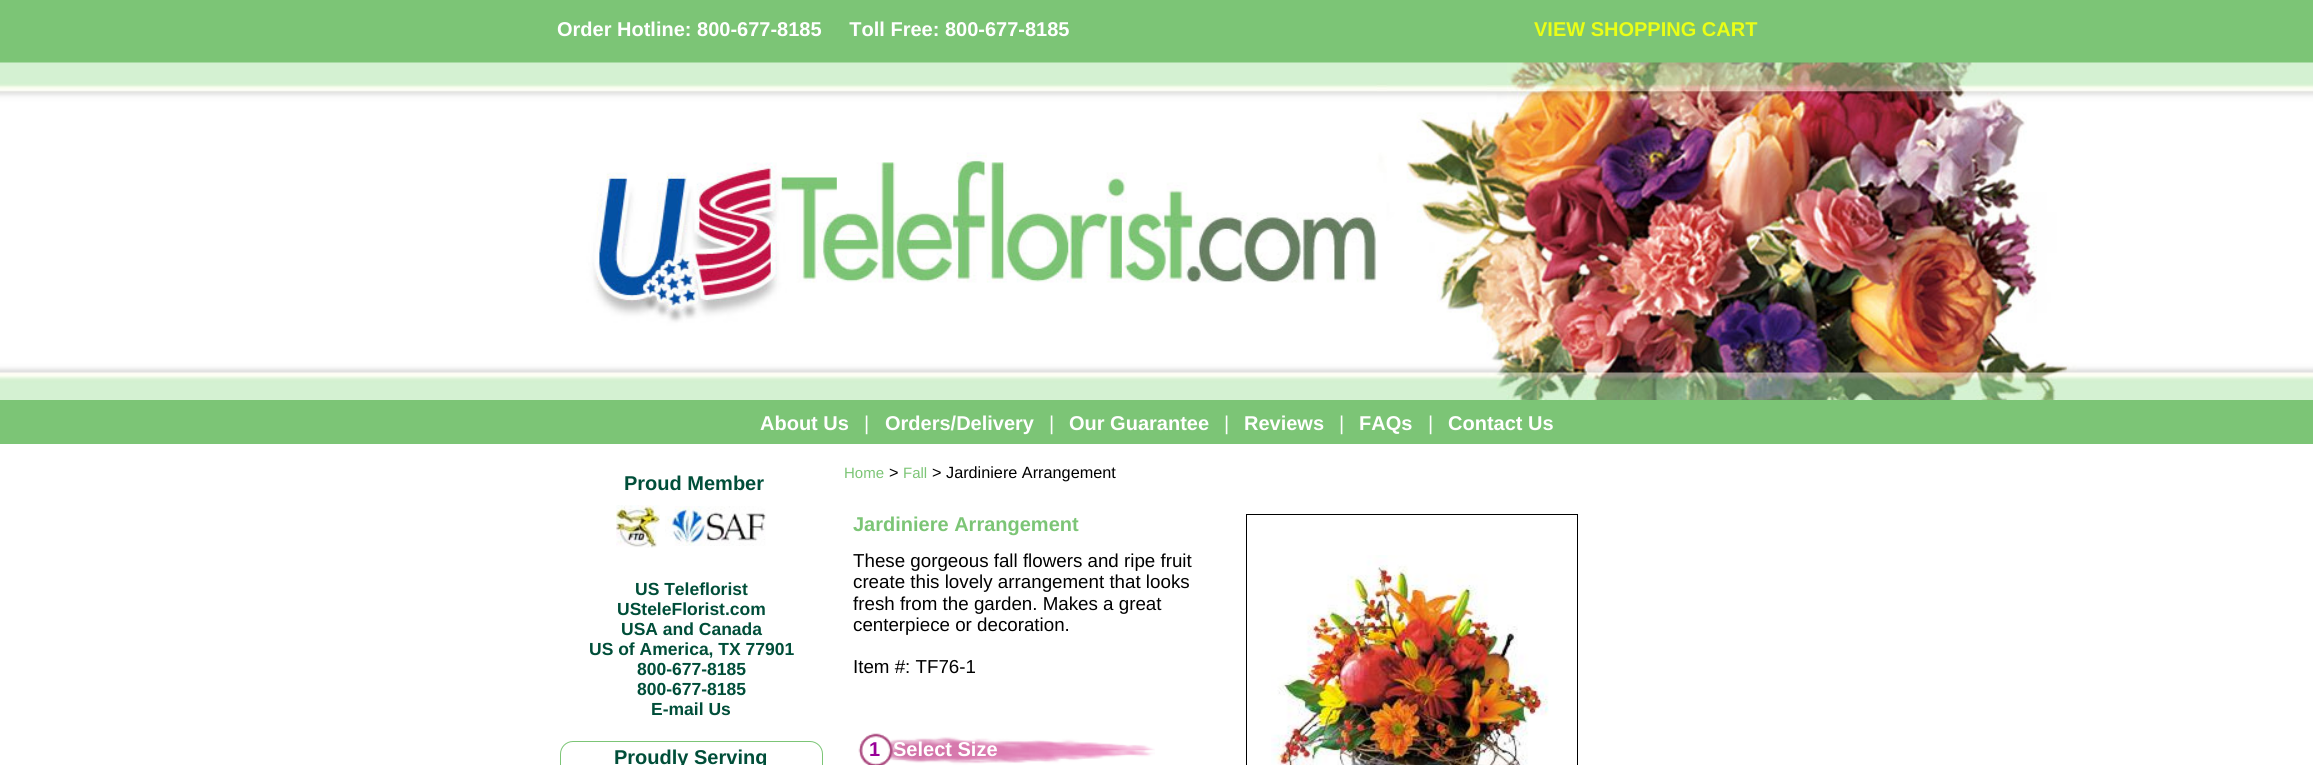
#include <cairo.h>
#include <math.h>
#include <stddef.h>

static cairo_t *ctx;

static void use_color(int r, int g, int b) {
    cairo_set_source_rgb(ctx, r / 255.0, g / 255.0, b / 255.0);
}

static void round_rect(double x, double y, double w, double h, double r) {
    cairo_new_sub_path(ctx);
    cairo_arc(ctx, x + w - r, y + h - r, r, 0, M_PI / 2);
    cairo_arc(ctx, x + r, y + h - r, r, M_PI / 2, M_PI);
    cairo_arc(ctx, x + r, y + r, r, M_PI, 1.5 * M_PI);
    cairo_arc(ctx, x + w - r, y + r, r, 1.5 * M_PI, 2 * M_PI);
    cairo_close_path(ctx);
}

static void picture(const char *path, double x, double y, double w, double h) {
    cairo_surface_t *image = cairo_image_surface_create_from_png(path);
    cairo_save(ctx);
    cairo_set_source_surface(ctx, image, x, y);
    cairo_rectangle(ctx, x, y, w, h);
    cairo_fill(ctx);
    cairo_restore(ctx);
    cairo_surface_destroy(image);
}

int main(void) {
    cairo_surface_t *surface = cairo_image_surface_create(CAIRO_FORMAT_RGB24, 2313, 765);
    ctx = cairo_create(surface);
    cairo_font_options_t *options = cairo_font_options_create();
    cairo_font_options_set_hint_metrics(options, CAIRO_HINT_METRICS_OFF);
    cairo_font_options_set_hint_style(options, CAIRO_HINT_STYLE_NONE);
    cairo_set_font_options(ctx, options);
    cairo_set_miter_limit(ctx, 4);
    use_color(255, 255, 255);
    cairo_paint(ctx);
    use_color(124, 197, 118);
    cairo_rectangle(ctx, 0, 0, 2313, 63);
    cairo_fill(ctx);
    cairo_select_font_face(ctx, "Liberation Sans", CAIRO_FONT_SLANT_NORMAL, CAIRO_FONT_WEIGHT_BOLD);
    cairo_set_font_size(ctx, 20);
    use_color(255, 255, 255);
    cairo_move_to(ctx, 557, 36);
    cairo_show_text(ctx, "Order Hotline: 800-677-8185     Toll Free: 800-677-8185");
    use_color(234, 254, 22);
    cairo_move_to(ctx, 1534, 36);
    cairo_show_text(ctx, "VIEW SHOPPING CART");
    picture("img1.png", 0, 62, 2313, 338);
    use_color(124, 197, 118);
    cairo_rectangle(ctx, 0, 400, 2313, 44);
    cairo_fill(ctx);
    use_color(255, 255, 255);
    cairo_move_to(ctx, 760, 430);
    cairo_show_text(ctx, "About Us");
    cairo_select_font_face(ctx, "Liberation Sans", CAIRO_FONT_SLANT_NORMAL, CAIRO_FONT_WEIGHT_NORMAL);
    cairo_move_to(ctx, 864, 430);
    cairo_show_text(ctx, "|");
    cairo_select_font_face(ctx, "Liberation Sans", CAIRO_FONT_SLANT_NORMAL, CAIRO_FONT_WEIGHT_BOLD);
    cairo_move_to(ctx, 885, 430);
    cairo_show_text(ctx, "Orders/Delivery");
    cairo_select_font_face(ctx, "Liberation Sans", CAIRO_FONT_SLANT_NORMAL, CAIRO_FONT_WEIGHT_NORMAL);
    cairo_move_to(ctx, 1049, 430);
    cairo_show_text(ctx, "|");
    cairo_select_font_face(ctx, "Liberation Sans", CAIRO_FONT_SLANT_NORMAL, CAIRO_FONT_WEIGHT_BOLD);
    cairo_move_to(ctx, 1069, 430);
    cairo_show_text(ctx, "Our Guarantee");
    cairo_select_font_face(ctx, "Liberation Sans", CAIRO_FONT_SLANT_NORMAL, CAIRO_FONT_WEIGHT_NORMAL);
    cairo_move_to(ctx, 1224, 430);
    cairo_show_text(ctx, "|");
    cairo_select_font_face(ctx, "Liberation Sans", CAIRO_FONT_SLANT_NORMAL, CAIRO_FONT_WEIGHT_BOLD);
    cairo_move_to(ctx, 1244, 430);
    cairo_show_text(ctx, "Reviews");
    cairo_select_font_face(ctx, "Liberation Sans", CAIRO_FONT_SLANT_NORMAL, CAIRO_FONT_WEIGHT_NORMAL);
    cairo_move_to(ctx, 1339, 430);
    cairo_show_text(ctx, "|");
    cairo_select_font_face(ctx, "Liberation Sans", CAIRO_FONT_SLANT_NORMAL, CAIRO_FONT_WEIGHT_BOLD);
    cairo_move_to(ctx, 1359, 430);
    cairo_show_text(ctx, "FAQs");
    cairo_select_font_face(ctx, "Liberation Sans", CAIRO_FONT_SLANT_NORMAL, CAIRO_FONT_WEIGHT_NORMAL);
    cairo_move_to(ctx, 1428, 430);
    cairo_show_text(ctx, "|");
    cairo_select_font_face(ctx, "Liberation Sans", CAIRO_FONT_SLANT_NORMAL, CAIRO_FONT_WEIGHT_BOLD);
    cairo_move_to(ctx, 1448, 430);
    cairo_show_text(ctx, "Contact Us");
    use_color(0, 78, 57);
    cairo_move_to(ctx, 624, 490);
    cairo_show_text(ctx, "Proud Member");
    picture("img2.png", 616, 505, 44, 43);
    picture("img3.png", 665, 506, 101, 40);
    cairo_set_font_size(ctx, 17.5);
    cairo_move_to(ctx, 635, 595);
    cairo_show_text(ctx, "US Teleflorist");
    cairo_move_to(ctx, 617, 615);
    cairo_show_text(ctx, "USteleFlorist.com");
    cairo_move_to(ctx, 621, 635);
    cairo_show_text(ctx, "USA and Canada");
    cairo_move_to(ctx, 589, 655);
    cairo_show_text(ctx, "US of America, TX 77901");
    cairo_move_to(ctx, 637, 675);
    cairo_show_text(ctx, "800-677-8185");
    cairo_move_to(ctx, 637, 695);
    cairo_show_text(ctx, "800-677-8185");
    cairo_move_to(ctx, 651, 715);
    cairo_show_text(ctx, "E-mail Us");
    round_rect(560.5, 741.5, 262, 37, 12.5);
    use_color(124, 197, 118);
    cairo_set_line_width(ctx, 1);
    cairo_stroke(ctx);
    cairo_set_font_size(ctx, 20);
    use_color(0, 78, 57);
    cairo_move_to(ctx, 614, 764);
    cairo_show_text(ctx, "Proudly Serving");
    cairo_select_font_face(ctx, "Liberation Sans", CAIRO_FONT_SLANT_NORMAL, CAIRO_FONT_WEIGHT_NORMAL);
    cairo_set_font_size(ctx, 15);
    use_color(124, 197, 118);
    cairo_move_to(ctx, 844, 478);
    cairo_show_text(ctx, "Home");
    cairo_set_font_size(ctx, 16.25);
    use_color(0, 0, 0);
    cairo_move_to(ctx, 889, 478);
    cairo_show_text(ctx, ">");
    cairo_set_font_size(ctx, 15);
    use_color(124, 197, 118);
    cairo_move_to(ctx, 903, 478);
    cairo_show_text(ctx, "Fall");
    cairo_set_font_size(ctx, 16.25);
    use_color(0, 0, 0);
    cairo_move_to(ctx, 932, 478);
    cairo_show_text(ctx, "> Jardiniere Arrangement");
    cairo_select_font_face(ctx, "Liberation Sans", CAIRO_FONT_SLANT_NORMAL, CAIRO_FONT_WEIGHT_BOLD);
    cairo_set_font_size(ctx, 20);
    use_color(124, 197, 118);
    cairo_move_to(ctx, 853, 531);
    cairo_show_text(ctx, "Jardiniere Arrangement");
    cairo_select_font_face(ctx, "Liberation Sans", CAIRO_FONT_SLANT_NORMAL, CAIRO_FONT_WEIGHT_NORMAL);
    cairo_set_font_size(ctx, 18.75);
    use_color(0, 0, 0);
    cairo_move_to(ctx, 853, 567);
    cairo_show_text(ctx, "These gorgeous fall flowers and ripe fruit");
    cairo_move_to(ctx, 853, 588);
    cairo_show_text(ctx, "create this lovely arrangement that looks");
    cairo_move_to(ctx, 853, 610);
    cairo_show_text(ctx, "fresh from the garden. Makes a great");
    cairo_move_to(ctx, 853, 631);
    cairo_show_text(ctx, "centerpiece or decoration.");
    cairo_move_to(ctx, 853, 673);
    cairo_show_text(ctx, "Item #: TF76-1");
    picture("img4.png", 858, 733, 297, 32);
    cairo_select_font_face(ctx, "Liberation Sans", CAIRO_FONT_SLANT_NORMAL, CAIRO_FONT_WEIGHT_BOLD);
    cairo_set_font_size(ctx, 20);
    use_color(153, 0, 153);
    cairo_move_to(ctx, 869, 756);
    cairo_show_text(ctx, "1");
    use_color(255, 255, 255);
    cairo_move_to(ctx, 893, 756);
    cairo_show_text(ctx, "Select Size");
    cairo_rectangle(ctx, 1246.5, 514.5, 331, 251);
    use_color(0, 0, 0);
    cairo_stroke(ctx);
    picture("img5.png", 1271, 555, 278, 210);
    cairo_surface_write_to_png(surface, "result.png");
    cairo_font_options_destroy(options);
    cairo_destroy(ctx);
    cairo_surface_destroy(surface);
    return 0;
}
